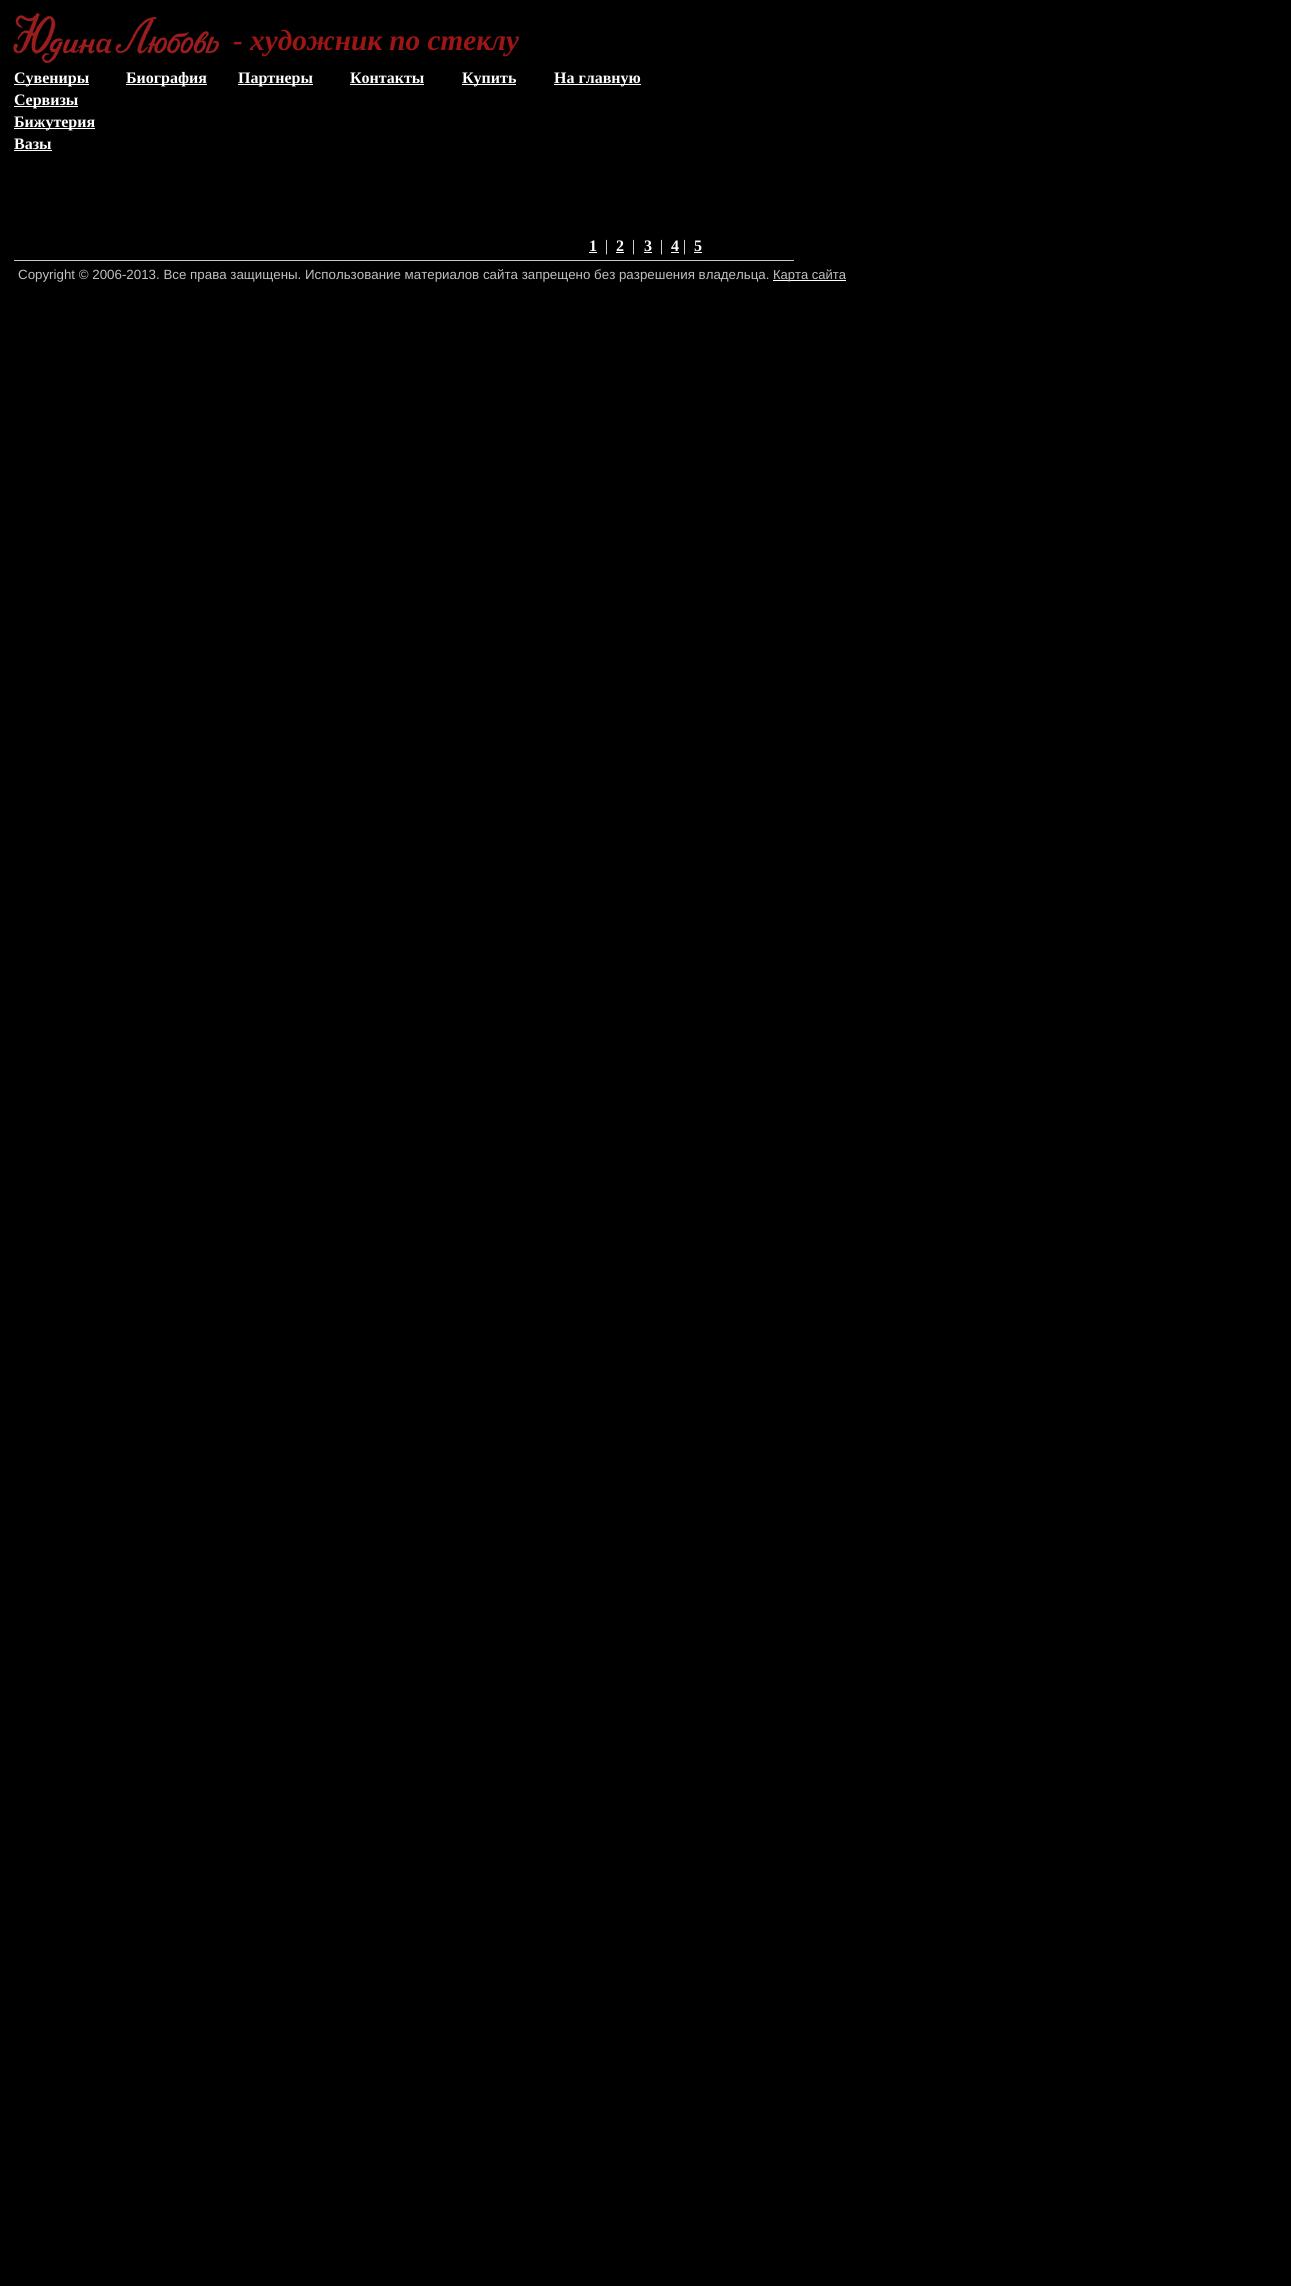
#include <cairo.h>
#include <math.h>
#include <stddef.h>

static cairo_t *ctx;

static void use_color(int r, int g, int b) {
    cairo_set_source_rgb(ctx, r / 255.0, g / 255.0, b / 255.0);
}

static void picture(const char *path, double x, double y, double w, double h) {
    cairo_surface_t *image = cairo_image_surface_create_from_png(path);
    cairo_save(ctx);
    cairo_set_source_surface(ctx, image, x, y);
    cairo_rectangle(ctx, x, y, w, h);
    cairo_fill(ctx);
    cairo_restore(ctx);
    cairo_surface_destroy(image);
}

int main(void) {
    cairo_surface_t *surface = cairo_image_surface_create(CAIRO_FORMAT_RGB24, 1291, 2286);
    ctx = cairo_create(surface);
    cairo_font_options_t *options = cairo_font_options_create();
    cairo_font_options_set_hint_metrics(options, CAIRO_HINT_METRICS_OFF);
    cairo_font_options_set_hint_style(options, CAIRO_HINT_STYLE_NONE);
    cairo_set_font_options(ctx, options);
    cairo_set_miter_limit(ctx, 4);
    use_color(0, 0, 0);
    cairo_paint(ctx);
    picture("img1.png", 13, 13, 206, 50);
    cairo_select_font_face(ctx, "Liberation Serif", CAIRO_FONT_SLANT_ITALIC, CAIRO_FONT_WEIGHT_BOLD);
    cairo_set_font_size(ctx, 29.25);
    use_color(157, 21, 21);
    cairo_move_to(ctx, 233, 50);
    cairo_show_text(ctx, "- художник по стеклу");
    use_color(255, 255, 255);
    cairo_rectangle(ctx, 14, 84, 75, 1);
    cairo_fill(ctx);
    cairo_select_font_face(ctx, "Liberation Serif", CAIRO_FONT_SLANT_NORMAL, CAIRO_FONT_WEIGHT_BOLD);
    cairo_set_font_size(ctx, 16);
    cairo_move_to(ctx, 14, 83);
    cairo_show_text(ctx, "Сувениры");
    cairo_rectangle(ctx, 126, 84, 81, 1);
    cairo_fill(ctx);
    cairo_move_to(ctx, 126, 83);
    cairo_show_text(ctx, "Биография");
    cairo_rectangle(ctx, 238, 84, 75, 1);
    cairo_fill(ctx);
    cairo_move_to(ctx, 238, 83);
    cairo_show_text(ctx, "Партнеры");
    cairo_move_to(ctx, 350, 83);
    cairo_show_text(ctx, "Контакты");
    cairo_rectangle(ctx, 350, 84, 74, 1);
    cairo_fill(ctx);
    cairo_rectangle(ctx, 462, 84, 54, 1);
    cairo_fill(ctx);
    cairo_move_to(ctx, 462, 83);
    cairo_show_text(ctx, "Купить");
    cairo_rectangle(ctx, 554, 84, 87, 1);
    cairo_fill(ctx);
    cairo_move_to(ctx, 554, 83);
    cairo_show_text(ctx, "На главную");
    cairo_rectangle(ctx, 14, 106, 64, 1);
    cairo_fill(ctx);
    cairo_move_to(ctx, 14, 105);
    cairo_show_text(ctx, "Сервизы");
    cairo_rectangle(ctx, 14, 128, 81, 1);
    cairo_fill(ctx);
    cairo_move_to(ctx, 14, 127);
    cairo_show_text(ctx, "Бижутерия");
    cairo_move_to(ctx, 14, 149);
    cairo_show_text(ctx, "Вазы");
    cairo_rectangle(ctx, 14, 150, 38, 1);
    cairo_fill(ctx);
    cairo_move_to(ctx, 589, 251);
    cairo_show_text(ctx, "1");
    cairo_rectangle(ctx, 589, 252, 8, 1);
    cairo_fill(ctx);
    cairo_select_font_face(ctx, "Liberation Serif", CAIRO_FONT_SLANT_NORMAL, CAIRO_FONT_WEIGHT_NORMAL);
    cairo_move_to(ctx, 605, 251);
    cairo_show_text(ctx, "|");
    cairo_select_font_face(ctx, "Liberation Serif", CAIRO_FONT_SLANT_NORMAL, CAIRO_FONT_WEIGHT_BOLD);
    cairo_move_to(ctx, 616, 251);
    cairo_show_text(ctx, "2");
    cairo_rectangle(ctx, 616, 252, 8, 1);
    cairo_fill(ctx);
    cairo_select_font_face(ctx, "Liberation Serif", CAIRO_FONT_SLANT_NORMAL, CAIRO_FONT_WEIGHT_NORMAL);
    cairo_move_to(ctx, 632, 251);
    cairo_show_text(ctx, "|");
    cairo_select_font_face(ctx, "Liberation Serif", CAIRO_FONT_SLANT_NORMAL, CAIRO_FONT_WEIGHT_BOLD);
    cairo_move_to(ctx, 644, 251);
    cairo_show_text(ctx, "3");
    cairo_rectangle(ctx, 644, 252, 8, 1);
    cairo_fill(ctx);
    cairo_select_font_face(ctx, "Liberation Serif", CAIRO_FONT_SLANT_NORMAL, CAIRO_FONT_WEIGHT_NORMAL);
    cairo_move_to(ctx, 660, 251);
    cairo_show_text(ctx, "|");
    cairo_select_font_face(ctx, "Liberation Serif", CAIRO_FONT_SLANT_NORMAL, CAIRO_FONT_WEIGHT_BOLD);
    cairo_move_to(ctx, 671, 251);
    cairo_show_text(ctx, "4");
    cairo_rectangle(ctx, 671, 252, 8, 1);
    cairo_fill(ctx);
    cairo_select_font_face(ctx, "Liberation Serif", CAIRO_FONT_SLANT_NORMAL, CAIRO_FONT_WEIGHT_NORMAL);
    cairo_move_to(ctx, 683, 251);
    cairo_show_text(ctx, "|");
    cairo_select_font_face(ctx, "Liberation Serif", CAIRO_FONT_SLANT_NORMAL, CAIRO_FONT_WEIGHT_BOLD);
    cairo_move_to(ctx, 694, 251);
    cairo_show_text(ctx, "5");
    cairo_rectangle(ctx, 694, 252, 8, 1);
    cairo_fill(ctx);
    use_color(200, 200, 200);
    cairo_rectangle(ctx, 14, 260, 780, 1);
    cairo_fill(ctx);
    cairo_select_font_face(ctx, "Liberation Sans", CAIRO_FONT_SLANT_NORMAL, CAIRO_FONT_WEIGHT_NORMAL);
    cairo_set_font_size(ctx, 13.33);
    use_color(192, 192, 192);
    cairo_move_to(ctx, 18, 279);
    cairo_show_text(ctx, "Copyright © 2006-2013. Все права защищены. Использование материалов сайта запрещено без разрешения владельца.");
    use_color(255, 255, 255);
    cairo_rectangle(ctx, 773, 280, 73, 1);
    cairo_fill(ctx);
    cairo_set_font_size(ctx, 13);
    use_color(192, 192, 192);
    cairo_move_to(ctx, 773, 279);
    cairo_show_text(ctx, "Карта сайта");
    cairo_surface_write_to_png(surface, "result.png");
    cairo_font_options_destroy(options);
    cairo_destroy(ctx);
    cairo_surface_destroy(surface);
    return 0;
}
